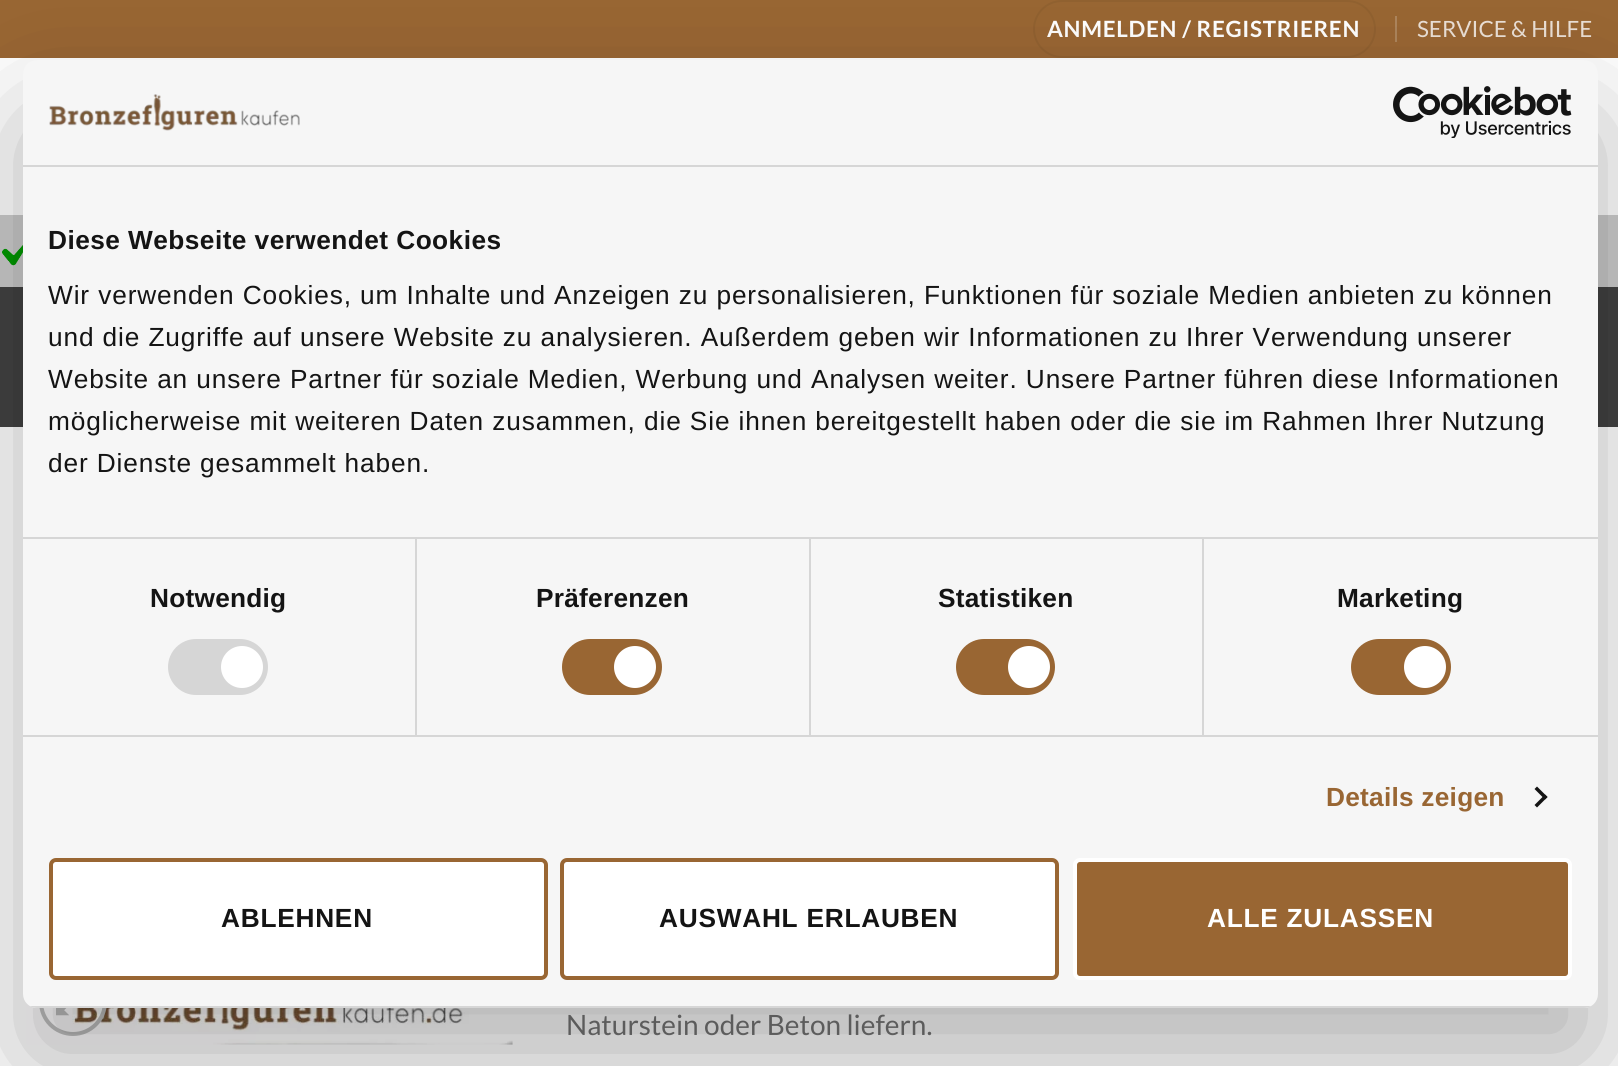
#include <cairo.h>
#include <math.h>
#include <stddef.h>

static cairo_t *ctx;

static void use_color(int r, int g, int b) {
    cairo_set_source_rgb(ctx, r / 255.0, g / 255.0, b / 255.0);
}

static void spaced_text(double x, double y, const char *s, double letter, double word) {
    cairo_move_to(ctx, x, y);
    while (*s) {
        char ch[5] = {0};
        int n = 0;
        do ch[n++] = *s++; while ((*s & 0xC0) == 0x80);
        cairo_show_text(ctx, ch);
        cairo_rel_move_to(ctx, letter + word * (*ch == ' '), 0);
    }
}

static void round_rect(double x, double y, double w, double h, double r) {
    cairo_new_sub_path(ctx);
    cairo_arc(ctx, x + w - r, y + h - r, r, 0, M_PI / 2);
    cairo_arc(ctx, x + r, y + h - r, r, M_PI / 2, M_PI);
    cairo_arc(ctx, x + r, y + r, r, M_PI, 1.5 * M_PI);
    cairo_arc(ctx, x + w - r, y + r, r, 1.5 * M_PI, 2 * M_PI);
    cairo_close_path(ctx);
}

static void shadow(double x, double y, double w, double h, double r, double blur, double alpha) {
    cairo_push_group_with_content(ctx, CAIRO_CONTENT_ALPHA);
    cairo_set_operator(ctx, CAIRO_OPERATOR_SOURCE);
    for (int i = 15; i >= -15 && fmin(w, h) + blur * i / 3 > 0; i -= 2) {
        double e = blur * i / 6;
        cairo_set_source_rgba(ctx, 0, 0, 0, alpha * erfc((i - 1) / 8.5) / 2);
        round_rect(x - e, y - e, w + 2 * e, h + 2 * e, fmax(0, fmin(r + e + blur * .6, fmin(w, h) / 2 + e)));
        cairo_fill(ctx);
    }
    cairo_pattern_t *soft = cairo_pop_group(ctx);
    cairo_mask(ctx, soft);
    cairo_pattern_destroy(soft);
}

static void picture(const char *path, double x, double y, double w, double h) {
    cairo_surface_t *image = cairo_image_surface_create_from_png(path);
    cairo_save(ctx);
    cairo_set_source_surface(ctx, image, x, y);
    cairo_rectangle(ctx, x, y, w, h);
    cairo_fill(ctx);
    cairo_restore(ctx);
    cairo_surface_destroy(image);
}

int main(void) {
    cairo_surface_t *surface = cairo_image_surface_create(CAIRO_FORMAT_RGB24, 1618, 1066);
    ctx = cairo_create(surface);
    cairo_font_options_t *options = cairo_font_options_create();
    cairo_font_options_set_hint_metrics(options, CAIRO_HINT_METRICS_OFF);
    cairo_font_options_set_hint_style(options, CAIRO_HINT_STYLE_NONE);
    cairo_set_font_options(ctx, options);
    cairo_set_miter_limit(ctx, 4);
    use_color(255, 255, 255);
    cairo_paint(ctx);
    use_color(153, 102, 51);
    cairo_rectangle(ctx, 0, 0, 1618, 58);
    cairo_fill(ctx);
    round_rect(1034, 1, 341, 56, 28);
    use_color(145, 97, 48);
    cairo_stroke(ctx);
    cairo_select_font_face(ctx, "Lato", CAIRO_FONT_SLANT_NORMAL, CAIRO_FONT_WEIGHT_BOLD);
    cairo_set_font_size(ctx, 22.4);
    use_color(255, 255, 255);
    spaced_text(1047, 37, "ANMELDEN / REGISTRIEREN", 0.7, 0);
    use_color(173, 133, 92);
    cairo_rectangle(ctx, 1395, 16, 2, 26);
    cairo_fill(ctx);
    cairo_select_font_face(ctx, "Lato", CAIRO_FONT_SLANT_NORMAL, CAIRO_FONT_WEIGHT_NORMAL);
    use_color(235, 224, 214);
    cairo_move_to(ctx, 1417, 37);
    cairo_show_text(ctx, "SERVICE & HILFE");
    use_color(204, 204, 204);
    cairo_rectangle(ctx, 0, 215, 1618, 72);
    cairo_fill(ctx);
    picture("img1.png", 2, 245, 21, 21);
    use_color(66, 66, 66);
    cairo_rectangle(ctx, 0, 287, 1618, 140);
    cairo_fill(ctx);
    picture("img3.png", 26, 1002, 487, 43);
    cairo_arc(ctx, 73, 1002, 32, 0, 2 * M_PI);
    use_color(192, 192, 192);
    cairo_set_line_width(ctx, 4);
    cairo_stroke(ctx);
    picture("img2.png", 56, 1008, 14, 8);
    cairo_set_font_size(ctx, 28);
    use_color(119, 119, 119);
    cairo_move_to(ctx, 566, 1035);
    cairo_show_text(ctx, "Naturstein oder Beton liefern.");
    use_color(0, 0, 0);
    shadow(23, 116, 1575, 948, 14, 59.5, 0.3);
    use_color(246, 246, 246);
    round_rect(23, 60, 1575, 948, 14);
    cairo_fill(ctx);
    use_color(214, 214, 214);
    cairo_rectangle(ctx, 23, 165, 1575, 2);
    cairo_fill(ctx);
    picture("img4.png", 49, 94, 251, 37);
    picture("img5.png", 1393, 86, 179, 52);
    cairo_rectangle(ctx, 23, 537, 1575, 2);
    cairo_fill(ctx);
    cairo_select_font_face(ctx, "Liberation Sans", CAIRO_FONT_SLANT_NORMAL, CAIRO_FONT_WEIGHT_BOLD);
    cairo_set_font_size(ctx, 26.25);
    use_color(20, 20, 20);
    spaced_text(48, 249, "Diese Webseite verwendet Cookies", 0.45, 0);
    cairo_select_font_face(ctx, "Liberation Sans", CAIRO_FONT_SLANT_NORMAL, CAIRO_FONT_WEIGHT_NORMAL);
    spaced_text(48, 304, "Wir verwenden Cookies, um Inhalte und Anzeigen zu personalisieren, Funktionen für soziale Medien anbieten zu können", 0.88, 0);
    spaced_text(48, 346, "und die Zugriffe auf unsere Website zu analysieren. Außerdem geben wir Informationen zu Ihrer Verwendung unserer", 0.88, 0);
    spaced_text(48, 388, "Website an unsere Partner für soziale Medien, Werbung und Analysen weiter. Unsere Partner führen diese Informationen", 0.88, 0);
    spaced_text(48, 430, "möglicherweise mit weiteren Daten zusammen, die Sie ihnen bereitgestellt haben oder die sie im Rahmen Ihrer Nutzung", 0.88, 0);
    spaced_text(48, 472, "der Dienste gesammelt haben.", 0.88, 0);
    use_color(214, 214, 214);
    cairo_rectangle(ctx, 23, 735, 1575, 2);
    cairo_fill(ctx);
    cairo_rectangle(ctx, 415, 539, 2, 196);
    cairo_fill(ctx);
    cairo_select_font_face(ctx, "Liberation Sans", CAIRO_FONT_SLANT_NORMAL, CAIRO_FONT_WEIGHT_BOLD);
    use_color(20, 20, 20);
    spaced_text(150, 607, "Notwendig", 0.25, 0);
    use_color(214, 214, 214);
    round_rect(168, 639, 100, 56, 28);
    cairo_fill(ctx);
    use_color(255, 255, 255);
    cairo_arc(ctx, 242, 667, 21, 0, 2 * M_PI);
    cairo_fill(ctx);
    use_color(214, 214, 214);
    cairo_rectangle(ctx, 809, 539, 2, 196);
    cairo_fill(ctx);
    use_color(20, 20, 20);
    spaced_text(536, 607, "Präferenzen", 0.25, 0);
    use_color(153, 102, 51);
    round_rect(562, 639, 100, 56, 28);
    cairo_fill(ctx);
    use_color(255, 255, 255);
    cairo_arc(ctx, 635, 667, 21, 0, 2 * M_PI);
    cairo_fill(ctx);
    use_color(214, 214, 214);
    cairo_rectangle(ctx, 1202, 539, 2, 196);
    cairo_fill(ctx);
    use_color(20, 20, 20);
    spaced_text(938, 607, "Statistiken", 0.25, 0);
    use_color(153, 102, 51);
    round_rect(956, 639, 99, 56, 28);
    cairo_fill(ctx);
    use_color(255, 255, 255);
    cairo_arc(ctx, 1029, 667, 21, 0, 2 * M_PI);
    cairo_fill(ctx);
    use_color(20, 20, 20);
    spaced_text(1337, 607, "Marketing", 0.25, 0);
    use_color(153, 102, 51);
    round_rect(1351, 639, 100, 56, 28);
    cairo_fill(ctx);
    use_color(255, 255, 255);
    cairo_arc(ctx, 1425, 667, 21, 0, 2 * M_PI);
    cairo_fill(ctx);
    use_color(153, 102, 51);
    spaced_text(1326, 806, "Details zeigen", 0.25, 0);
    use_color(20, 20, 20);
    cairo_new_path(ctx);
    cairo_move_to(ctx, 1537, 786.5);
    cairo_line_to(ctx, 1547.5, 797);
    cairo_line_to(ctx, 1545, 799.5);
    cairo_line_to(ctx, 1534.5, 789);
    cairo_close_path(ctx);
    cairo_fill(ctx);
    cairo_new_path(ctx);
    cairo_move_to(ctx, 1545, 794.5);
    cairo_line_to(ctx, 1547.5, 797);
    cairo_line_to(ctx, 1537, 807.5);
    cairo_line_to(ctx, 1534.5, 805);
    cairo_close_path(ctx);
    cairo_fill(ctx);
    cairo_save(ctx);
    round_rect(23, 60, 1575, 948, 14);
    cairo_clip(ctx);
    use_color(214, 214, 214);
    cairo_rectangle(ctx, 23, 1006, 1575, 2);
    cairo_fill(ctx);
    cairo_restore(ctx);
    use_color(255, 255, 255);
    round_rect(51, 860, 495, 118, 5);
    cairo_fill_preserve(ctx);
    use_color(153, 102, 51);
    cairo_stroke(ctx);
    use_color(20, 20, 20);
    spaced_text(221, 927, "ABLEHNEN", 0.75, 0);
    use_color(255, 255, 255);
    round_rect(562, 860, 495, 118, 5);
    cairo_fill_preserve(ctx);
    use_color(153, 102, 51);
    cairo_stroke(ctx);
    use_color(20, 20, 20);
    spaced_text(659, 927, "AUSWAHL ERLAUBEN", 0.75, 0);
    use_color(153, 102, 51);
    round_rect(1075, 860, 495, 118, 5);
    cairo_fill_preserve(ctx);
    use_color(255, 255, 255);
    cairo_stroke(ctx);
    spaced_text(1207, 927, "ALLE ZULASSEN", 0.75, 0);
    cairo_surface_write_to_png(surface, "result.png");
    cairo_font_options_destroy(options);
    cairo_destroy(ctx);
    cairo_surface_destroy(surface);
    return 0;
}
